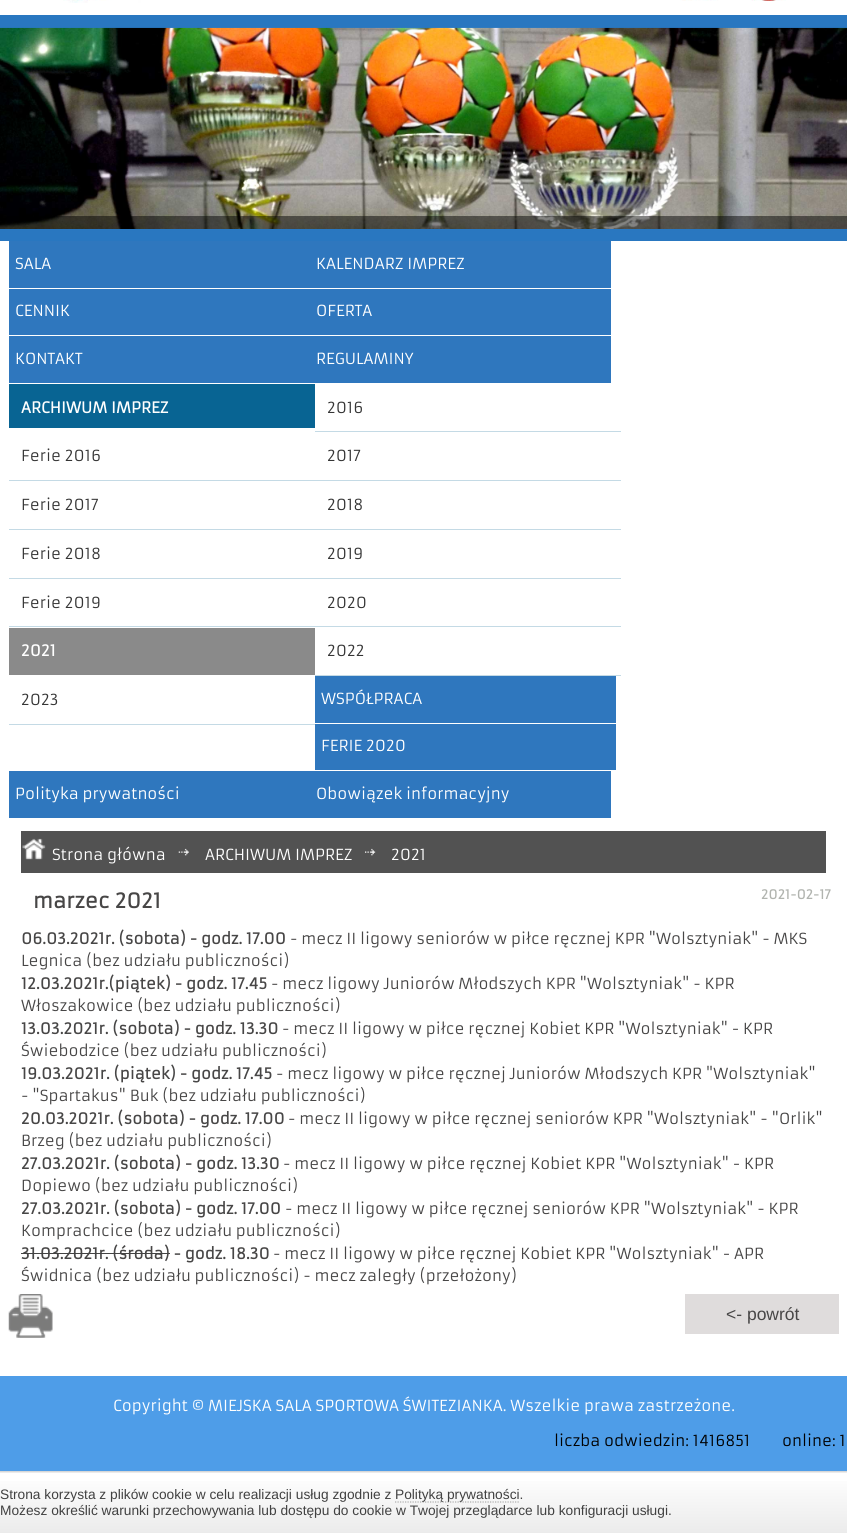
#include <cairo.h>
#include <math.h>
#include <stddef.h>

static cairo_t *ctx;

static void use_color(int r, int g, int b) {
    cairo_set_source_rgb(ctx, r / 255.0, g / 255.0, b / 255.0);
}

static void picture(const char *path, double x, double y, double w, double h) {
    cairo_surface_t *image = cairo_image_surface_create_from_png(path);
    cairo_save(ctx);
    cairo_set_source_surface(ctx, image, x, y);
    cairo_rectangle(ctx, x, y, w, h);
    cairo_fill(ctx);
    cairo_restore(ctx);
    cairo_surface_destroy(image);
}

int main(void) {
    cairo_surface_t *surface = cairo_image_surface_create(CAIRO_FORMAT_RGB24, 847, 1533);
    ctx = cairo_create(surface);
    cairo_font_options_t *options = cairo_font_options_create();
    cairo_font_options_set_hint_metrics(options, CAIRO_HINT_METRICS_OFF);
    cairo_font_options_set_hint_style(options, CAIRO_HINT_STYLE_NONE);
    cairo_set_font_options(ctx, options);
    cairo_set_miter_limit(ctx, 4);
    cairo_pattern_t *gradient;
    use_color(255, 255, 255);
    cairo_paint(ctx);
    picture("img1.png", 63, 0, 723, 3);
    use_color(41, 119, 192);
    cairo_rectangle(ctx, 0, 15, 847, 13);
    cairo_fill(ctx);
    picture("img2.png", 0, 27, 847, 202);
    cairo_set_source_rgba(ctx, 0, 0, 0, 0.48);
    cairo_rectangle(ctx, 0, 216, 847, 13);
    cairo_fill(ctx);
    use_color(41, 119, 192);
    cairo_rectangle(ctx, 0, 229, 847, 12);
    cairo_fill(ctx);
    use_color(47, 119, 190);
    cairo_rectangle(ctx, 9, 241, 602, 47);
    cairo_fill(ctx);
    cairo_select_font_face(ctx, "Armata", CAIRO_FONT_SLANT_NORMAL, CAIRO_FONT_WEIGHT_NORMAL);
    cairo_set_font_size(ctx, 15);
    use_color(255, 255, 255);
    cairo_move_to(ctx, 15, 269);
    cairo_show_text(ctx, "SALA");
    cairo_move_to(ctx, 316, 269);
    cairo_show_text(ctx, "KALENDARZ IMPREZ");
    use_color(47, 119, 190);
    cairo_rectangle(ctx, 9, 289, 602, 46);
    cairo_fill(ctx);
    use_color(255, 255, 255);
    cairo_move_to(ctx, 15, 316);
    cairo_show_text(ctx, "CENNIK");
    cairo_move_to(ctx, 316, 316);
    cairo_show_text(ctx, "OFERTA");
    use_color(47, 119, 190);
    cairo_rectangle(ctx, 9, 336, 602, 47);
    cairo_fill(ctx);
    use_color(255, 255, 255);
    cairo_move_to(ctx, 15, 364);
    cairo_show_text(ctx, "KONTAKT");
    cairo_move_to(ctx, 316, 364);
    cairo_show_text(ctx, "REGULAMINY");
    use_color(8, 100, 147);
    cairo_rectangle(ctx, 9, 384, 306, 44);
    cairo_fill(ctx);
    cairo_select_font_face(ctx, "Armata", CAIRO_FONT_SLANT_NORMAL, CAIRO_FONT_WEIGHT_BOLD);
    use_color(255, 255, 255);
    cairo_move_to(ctx, 21, 413);
    cairo_show_text(ctx, "ARCHIWUM IMPREZ");
    use_color(196, 218, 229);
    cairo_rectangle(ctx, 315, 431, 306, 1);
    cairo_fill(ctx);
    cairo_select_font_face(ctx, "Armata", CAIRO_FONT_SLANT_NORMAL, CAIRO_FONT_WEIGHT_NORMAL);
    use_color(53, 53, 53);
    cairo_move_to(ctx, 327, 413);
    cairo_show_text(ctx, "2016");
    use_color(196, 218, 229);
    cairo_rectangle(ctx, 9, 480, 612, 1);
    cairo_fill(ctx);
    use_color(53, 53, 53);
    cairo_move_to(ctx, 21, 461);
    cairo_show_text(ctx, "Ferie 2016");
    cairo_move_to(ctx, 327, 461);
    cairo_show_text(ctx, "2017");
    use_color(196, 218, 229);
    cairo_rectangle(ctx, 9, 529, 612, 1);
    cairo_fill(ctx);
    use_color(53, 53, 53);
    cairo_move_to(ctx, 21, 510);
    cairo_show_text(ctx, "Ferie 2017");
    cairo_move_to(ctx, 327, 510);
    cairo_show_text(ctx, "2018");
    use_color(196, 218, 229);
    cairo_rectangle(ctx, 9, 578, 612, 1);
    cairo_fill(ctx);
    use_color(53, 53, 53);
    cairo_move_to(ctx, 21, 559);
    cairo_show_text(ctx, "Ferie 2018");
    cairo_move_to(ctx, 327, 559);
    cairo_show_text(ctx, "2019");
    use_color(196, 218, 229);
    cairo_rectangle(ctx, 9, 626, 612, 1);
    cairo_fill(ctx);
    use_color(53, 53, 53);
    cairo_move_to(ctx, 21, 608);
    cairo_show_text(ctx, "Ferie 2019");
    cairo_move_to(ctx, 327, 608);
    cairo_show_text(ctx, "2020");
    use_color(138, 138, 138);
    cairo_rectangle(ctx, 9, 628, 306, 47);
    cairo_fill(ctx);
    cairo_select_font_face(ctx, "Armata", CAIRO_FONT_SLANT_NORMAL, CAIRO_FONT_WEIGHT_BOLD);
    use_color(255, 255, 255);
    cairo_move_to(ctx, 21, 656);
    cairo_show_text(ctx, "2021");
    use_color(196, 218, 229);
    cairo_rectangle(ctx, 315, 675, 306, 1);
    cairo_fill(ctx);
    cairo_select_font_face(ctx, "Armata", CAIRO_FONT_SLANT_NORMAL, CAIRO_FONT_WEIGHT_NORMAL);
    use_color(53, 53, 53);
    cairo_move_to(ctx, 327, 656);
    cairo_show_text(ctx, "2022");
    use_color(196, 218, 229);
    cairo_rectangle(ctx, 9, 724, 306, 1);
    cairo_fill(ctx);
    use_color(53, 53, 53);
    cairo_move_to(ctx, 21, 705);
    cairo_show_text(ctx, "2023");
    use_color(47, 119, 190);
    cairo_rectangle(ctx, 315, 676, 301, 47);
    cairo_fill(ctx);
    use_color(255, 255, 255);
    cairo_move_to(ctx, 321, 704);
    cairo_show_text(ctx, "WSPÓŁPRACA");
    use_color(47, 119, 190);
    cairo_rectangle(ctx, 315, 724, 301, 46);
    cairo_fill(ctx);
    use_color(255, 255, 255);
    cairo_move_to(ctx, 321, 751);
    cairo_show_text(ctx, "FERIE 2020");
    use_color(47, 119, 190);
    cairo_rectangle(ctx, 9, 771, 602, 47);
    cairo_fill(ctx);
    use_color(255, 255, 255);
    cairo_move_to(ctx, 15, 799);
    cairo_show_text(ctx, "Polityka prywatności");
    cairo_move_to(ctx, 316, 799);
    cairo_show_text(ctx, "Obowiązek informacyjny");
    use_color(82, 82, 82);
    cairo_rectangle(ctx, 21, 831, 805, 42);
    cairo_fill(ctx);
    picture("img3.png", 22, 838, 24, 22);
    use_color(255, 255, 255);
    cairo_move_to(ctx, 52, 860);
    cairo_show_text(ctx, "Strona główna");
    picture("img4.png", 178, 848, 11, 8);
    cairo_move_to(ctx, 205, 860);
    cairo_show_text(ctx, "ARCHIWUM IMPREZ");
    picture("img5.png", 365, 848, 11, 8);
    cairo_move_to(ctx, 391, 860);
    cairo_show_text(ctx, "2021");
    cairo_select_font_face(ctx, "Armata", CAIRO_FONT_SLANT_NORMAL, CAIRO_FONT_WEIGHT_BOLD);
    cairo_set_font_size(ctx, 20);
    use_color(71, 70, 70);
    cairo_move_to(ctx, 33, 908);
    cairo_show_text(ctx, "marzec 2021");
    cairo_set_font_size(ctx, 12.5);
    use_color(177, 180, 175);
    cairo_move_to(ctx, 761, 899);
    cairo_show_text(ctx, "2021-02-17");
    cairo_set_font_size(ctx, 15);
    use_color(71, 70, 70);
    cairo_move_to(ctx, 21, 944);
    cairo_show_text(ctx, "06.03.2021r. (sobota) - godz. 17.00");
    cairo_select_font_face(ctx, "Armata", CAIRO_FONT_SLANT_NORMAL, CAIRO_FONT_WEIGHT_NORMAL);
    cairo_move_to(ctx, 290, 944);
    cairo_show_text(ctx, "- mecz II ligowy seniorów w piłce ręcznej KPR \"Wolsztyniak\" - MKS");
    cairo_move_to(ctx, 21, 966);
    cairo_show_text(ctx, "Legnica (bez udziału publiczności)");
    cairo_select_font_face(ctx, "Armata", CAIRO_FONT_SLANT_NORMAL, CAIRO_FONT_WEIGHT_BOLD);
    cairo_move_to(ctx, 21, 989);
    cairo_show_text(ctx, "12.03.2021r.(piątek) - godz. 17.45");
    cairo_select_font_face(ctx, "Armata", CAIRO_FONT_SLANT_NORMAL, CAIRO_FONT_WEIGHT_NORMAL);
    cairo_move_to(ctx, 271, 989);
    cairo_show_text(ctx, "- mecz ligowy Juniorów Młodszych KPR \"Wolsztyniak\" - KPR");
    cairo_move_to(ctx, 21, 1011);
    cairo_show_text(ctx, "Włoszakowice (bez udziału publiczności)");
    cairo_select_font_face(ctx, "Armata", CAIRO_FONT_SLANT_NORMAL, CAIRO_FONT_WEIGHT_BOLD);
    cairo_move_to(ctx, 21, 1034);
    cairo_show_text(ctx, "13.03.2021r. (sobota) - godz. 13.30");
    cairo_select_font_face(ctx, "Armata", CAIRO_FONT_SLANT_NORMAL, CAIRO_FONT_WEIGHT_NORMAL);
    cairo_move_to(ctx, 282, 1034);
    cairo_show_text(ctx, "- mecz II ligowy w piłce ręcznej Kobiet KPR \"Wolsztyniak\" - KPR");
    cairo_move_to(ctx, 21, 1056);
    cairo_show_text(ctx, "Świebodzice (bez udziału publiczności)");
    cairo_select_font_face(ctx, "Armata", CAIRO_FONT_SLANT_NORMAL, CAIRO_FONT_WEIGHT_BOLD);
    cairo_move_to(ctx, 21, 1079);
    cairo_show_text(ctx, "19.03.2021r. (piątek) - godz. 17.45");
    cairo_select_font_face(ctx, "Armata", CAIRO_FONT_SLANT_NORMAL, CAIRO_FONT_WEIGHT_NORMAL);
    cairo_move_to(ctx, 276, 1079);
    cairo_show_text(ctx, "- mecz ligowy w piłce ręcznej Juniorów Młodszych KPR \"Wolsztyniak\"");
    cairo_move_to(ctx, 21, 1101);
    cairo_show_text(ctx, "- \"Spartakus\" Buk (bez udziału publiczności)");
    cairo_select_font_face(ctx, "Armata", CAIRO_FONT_SLANT_NORMAL, CAIRO_FONT_WEIGHT_BOLD);
    cairo_move_to(ctx, 21, 1124);
    cairo_show_text(ctx, "20.03.2021r. (sobota) - godz. 17.00");
    cairo_select_font_face(ctx, "Armata", CAIRO_FONT_SLANT_NORMAL, CAIRO_FONT_WEIGHT_NORMAL);
    cairo_move_to(ctx, 288, 1124);
    cairo_show_text(ctx, "- mecz II ligowy w piłce ręcznej seniorów KPR \"Wolsztyniak\" - \"Orlik\"");
    cairo_move_to(ctx, 21, 1146);
    cairo_show_text(ctx, "Brzeg (bez udziału publiczności)");
    cairo_select_font_face(ctx, "Armata", CAIRO_FONT_SLANT_NORMAL, CAIRO_FONT_WEIGHT_BOLD);
    cairo_move_to(ctx, 21, 1169);
    cairo_show_text(ctx, "27.03.2021r. (sobota) - godz. 13.30");
    cairo_select_font_face(ctx, "Armata", CAIRO_FONT_SLANT_NORMAL, CAIRO_FONT_WEIGHT_NORMAL);
    cairo_move_to(ctx, 283, 1169);
    cairo_show_text(ctx, "- mecz II ligowy w piłce ręcznej Kobiet KPR \"Wolsztyniak\" - KPR");
    cairo_move_to(ctx, 21, 1191);
    cairo_show_text(ctx, "Dopiewo (bez udziału publiczności)");
    cairo_select_font_face(ctx, "Armata", CAIRO_FONT_SLANT_NORMAL, CAIRO_FONT_WEIGHT_BOLD);
    cairo_move_to(ctx, 21, 1214);
    cairo_show_text(ctx, "27.03.2021r. (sobota) - godz. 17.00");
    cairo_select_font_face(ctx, "Armata", CAIRO_FONT_SLANT_NORMAL, CAIRO_FONT_WEIGHT_NORMAL);
    cairo_move_to(ctx, 285, 1214);
    cairo_show_text(ctx, "- mecz II ligowy w piłce ręcznej seniorów KPR \"Wolsztyniak\" - KPR");
    cairo_move_to(ctx, 21, 1236);
    cairo_show_text(ctx, "Komprachcice (bez udziału publiczności)");
    cairo_select_font_face(ctx, "Armata", CAIRO_FONT_SLANT_NORMAL, CAIRO_FONT_WEIGHT_BOLD);
    cairo_move_to(ctx, 21, 1259);
    cairo_show_text(ctx, "31.03.2021r. (środa) - godz. 18.30");
    use_color(67, 67, 67);
    cairo_rectangle(ctx, 21, 1253, 149, 1);
    cairo_fill(ctx);
    cairo_select_font_face(ctx, "Armata", CAIRO_FONT_SLANT_NORMAL, CAIRO_FONT_WEIGHT_NORMAL);
    use_color(71, 70, 70);
    cairo_move_to(ctx, 273, 1259);
    cairo_show_text(ctx, "- mecz II ligowy w piłce ręcznej Kobiet KPR \"Wolsztyniak\" - APR");
    cairo_move_to(ctx, 21, 1281);
    cairo_show_text(ctx, "Świdnica (bez udziału publiczności) - mecz zaległy (przełożony)");
    picture("img6.png", 8, 1294, 45, 44);
    use_color(223, 220, 220);
    cairo_rectangle(ctx, 685, 1294, 154, 40);
    cairo_fill(ctx);
    cairo_select_font_face(ctx, "Liberation Sans", CAIRO_FONT_SLANT_NORMAL, CAIRO_FONT_WEIGHT_NORMAL);
    cairo_set_font_size(ctx, 17.5);
    use_color(71, 70, 70);
    cairo_move_to(ctx, 726, 1320);
    cairo_show_text(ctx, "<- powrót");
    use_color(78, 157, 232);
    cairo_rectangle(ctx, 0, 1376, 847, 95);
    cairo_fill(ctx);
    cairo_select_font_face(ctx, "Armata", CAIRO_FONT_SLANT_NORMAL, CAIRO_FONT_WEIGHT_NORMAL);
    cairo_set_font_size(ctx, 15);
    use_color(255, 255, 255);
    cairo_move_to(ctx, 113, 1411);
    cairo_show_text(ctx, "Copyright © MIEJSKA SALA SPORTOWA ŚWITEZIANKA. Wszelkie prawa zastrzeżone.");
    use_color(0, 0, 0);
    cairo_move_to(ctx, 554, 1446);
    cairo_show_text(ctx, "liczba odwiedzin: 1416851");
    cairo_move_to(ctx, 782, 1446);
    cairo_show_text(ctx, "online: 1");
    use_color(235, 235, 235);
    cairo_rectangle(ctx, 0, 1472, 847, 1);
    cairo_fill(ctx);
    gradient = cairo_pattern_create_linear(424, 1473, 424, 1533);
    cairo_pattern_add_color_stop_rgba(gradient, 0, 1, 1, 1, 1);
    cairo_pattern_add_color_stop_rgba(gradient, 1, 0.922, 0.922, 0.922, 1);
    cairo_set_source(ctx, gradient);
    cairo_pattern_destroy(gradient);
    cairo_rectangle(ctx, 0, 1481, 847, 52);
    cairo_fill(ctx);
    use_color(215, 215, 215);
    cairo_rectangle(ctx, 0, 1471, 847, 1);
    cairo_fill(ctx);
    cairo_select_font_face(ctx, "Liberation Sans", CAIRO_FONT_SLANT_NORMAL, CAIRO_FONT_WEIGHT_NORMAL);
    cairo_set_font_size(ctx, 13.75);
    use_color(65, 65, 65);
    cairo_move_to(ctx, 0, 1499);
    cairo_show_text(ctx, "Strona korzysta z plików cookie w celu realizacji usług zgodnie z");
    cairo_new_path(ctx);
    cairo_move_to(ctx, 395, 1502);
    cairo_line_to(ctx, 520, 1502);
    use_color(174, 174, 174);
    cairo_set_line_width(ctx, 1.2);
    cairo_set_dash(ctx, (double[]){1.25, 1.25}, 2, 0);
    cairo_stroke(ctx);
    use_color(65, 65, 65);
    cairo_move_to(ctx, 395, 1499);
    cairo_show_text(ctx, "Polityką prywatności.");
    cairo_move_to(ctx, 0, 1515);
    cairo_show_text(ctx, "Możesz określić warunki przechowywania lub dostępu do cookie w Twojej przeglądarce lub konfiguracji usługi.");
    cairo_surface_write_to_png(surface, "result.png");
    cairo_font_options_destroy(options);
    cairo_destroy(ctx);
    cairo_surface_destroy(surface);
    return 0;
}
